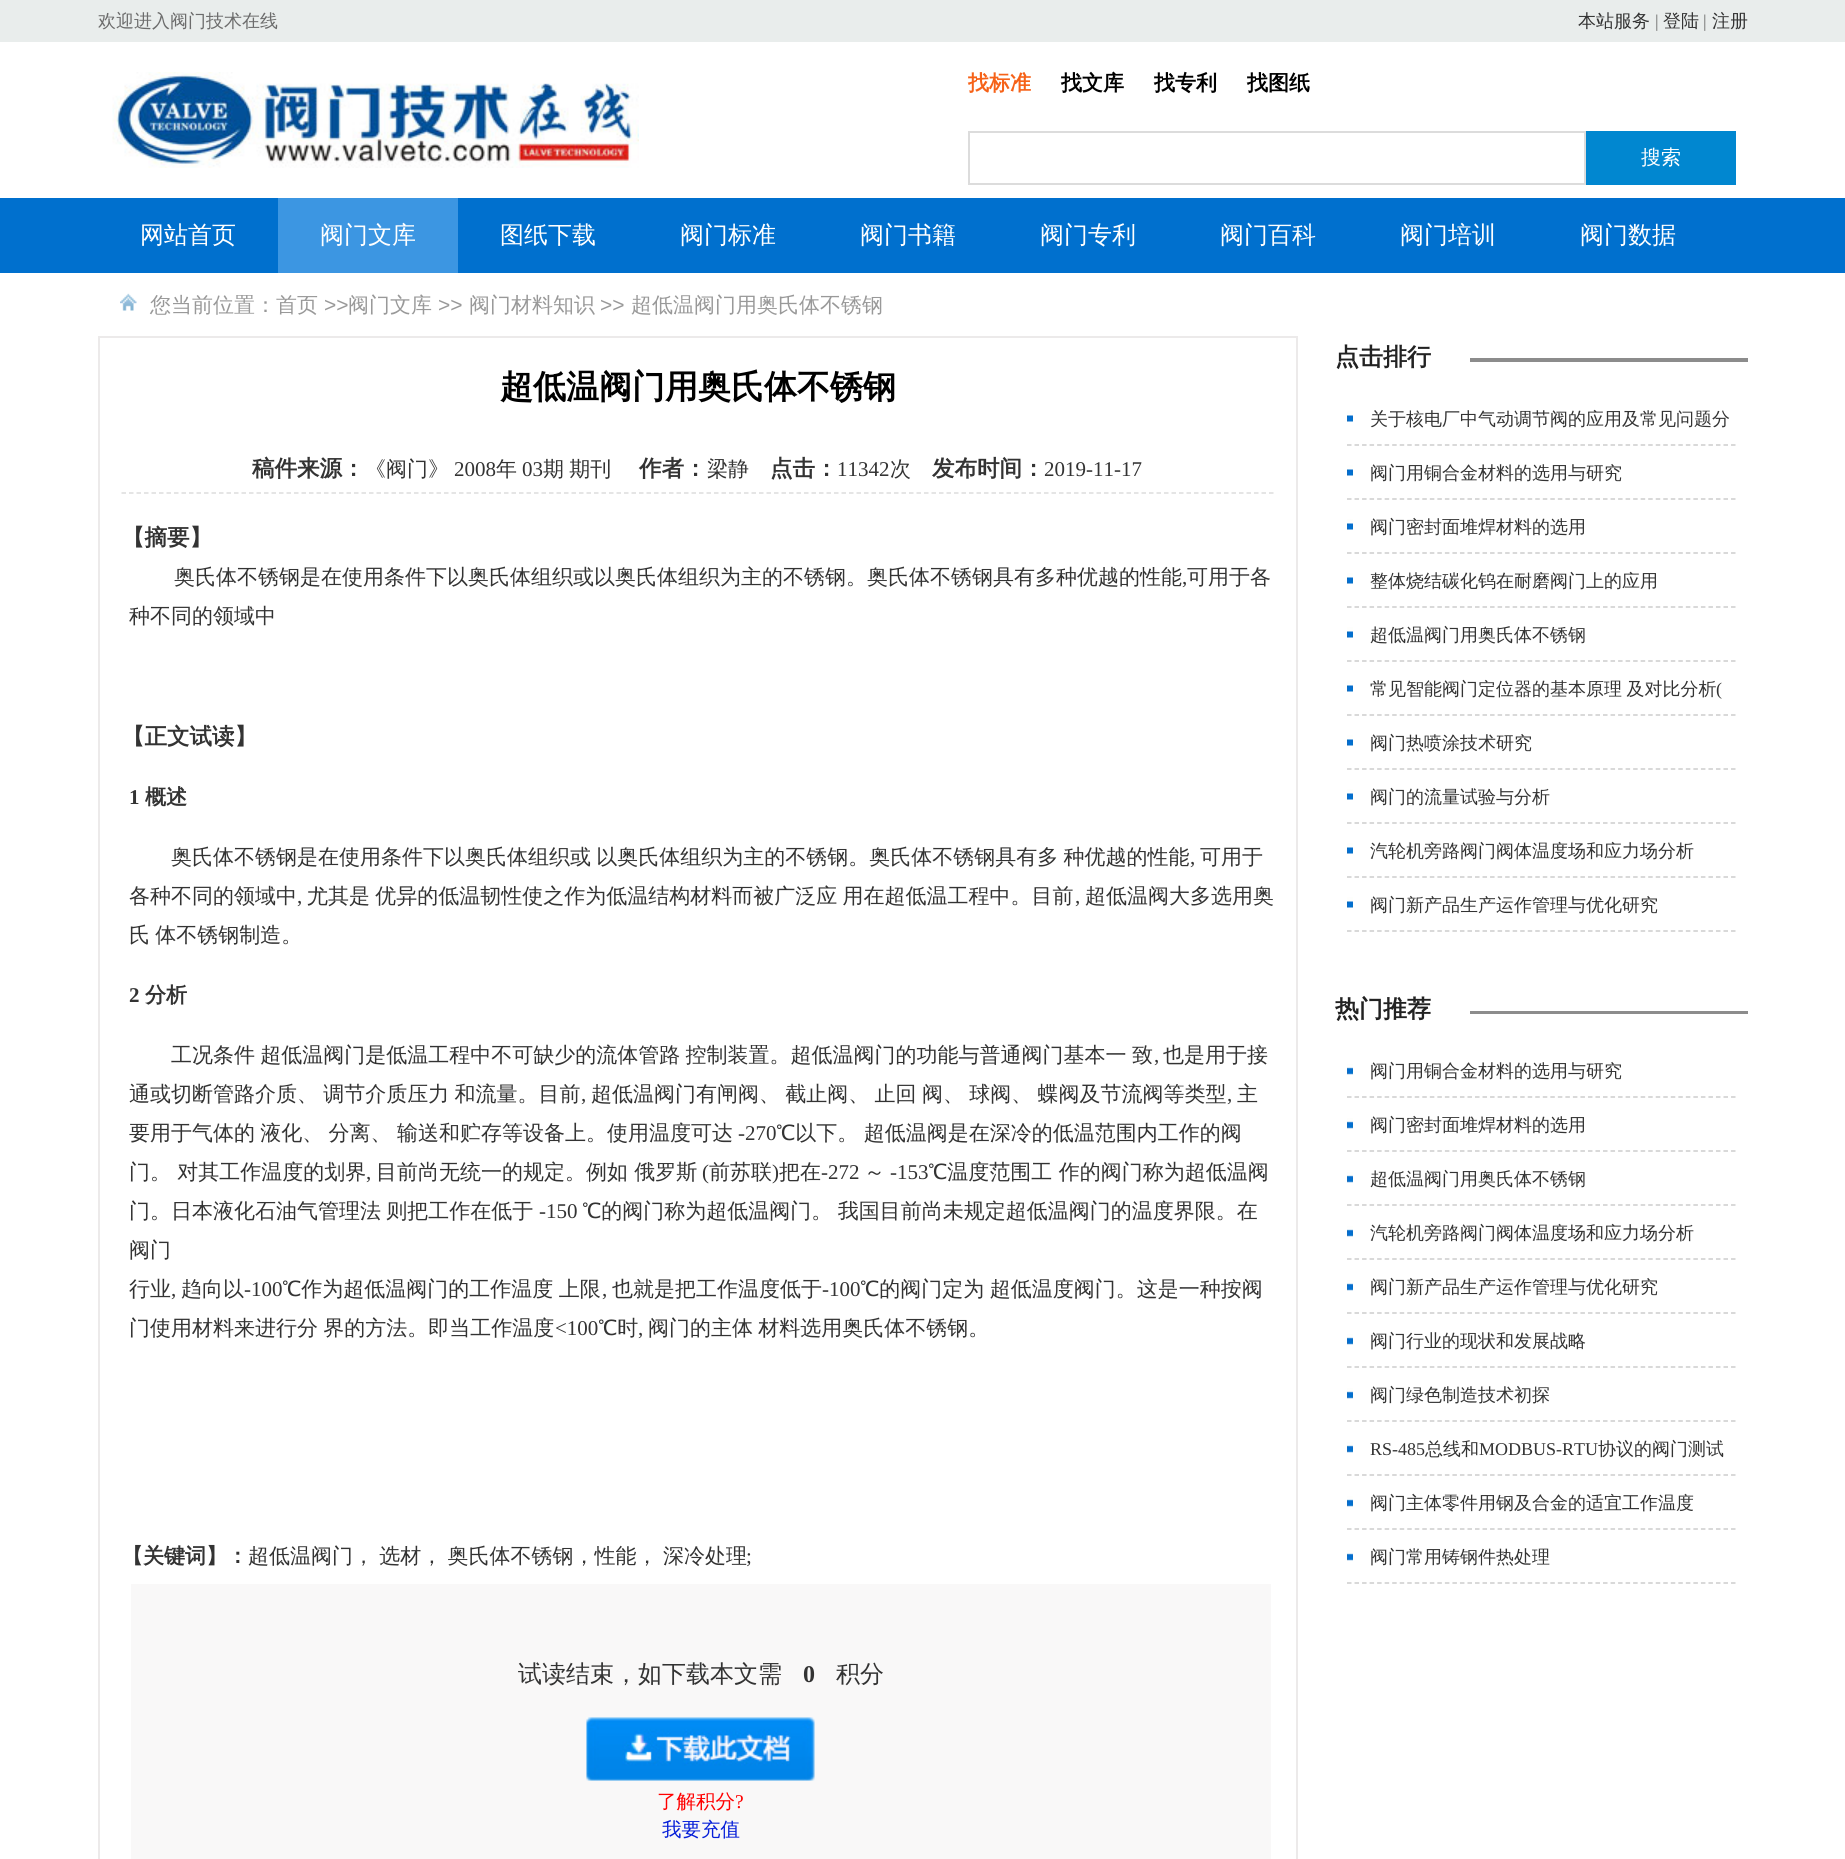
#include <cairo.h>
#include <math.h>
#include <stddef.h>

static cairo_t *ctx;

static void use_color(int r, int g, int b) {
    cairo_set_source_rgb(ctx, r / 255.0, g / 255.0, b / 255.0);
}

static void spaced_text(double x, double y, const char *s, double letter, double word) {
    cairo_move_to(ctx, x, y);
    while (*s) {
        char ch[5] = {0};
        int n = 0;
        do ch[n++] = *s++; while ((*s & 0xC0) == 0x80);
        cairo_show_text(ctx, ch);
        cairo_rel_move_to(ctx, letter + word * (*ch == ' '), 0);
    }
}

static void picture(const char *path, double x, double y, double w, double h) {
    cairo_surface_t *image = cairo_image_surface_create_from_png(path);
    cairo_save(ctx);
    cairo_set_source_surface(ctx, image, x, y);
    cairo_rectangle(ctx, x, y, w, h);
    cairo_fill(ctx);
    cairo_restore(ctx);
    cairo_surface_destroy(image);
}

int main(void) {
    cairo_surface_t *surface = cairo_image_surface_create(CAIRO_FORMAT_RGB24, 1845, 1859);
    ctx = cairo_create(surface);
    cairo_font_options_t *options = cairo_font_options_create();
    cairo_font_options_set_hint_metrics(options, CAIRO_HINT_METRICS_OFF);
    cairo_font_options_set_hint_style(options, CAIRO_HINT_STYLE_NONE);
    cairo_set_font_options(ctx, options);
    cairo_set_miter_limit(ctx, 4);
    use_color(255, 255, 255);
    cairo_paint(ctx);
    use_color(233, 237, 236);
    cairo_rectangle(ctx, 0, 0, 1845, 42);
    cairo_fill(ctx);
    cairo_select_font_face(ctx, "WenQuanYi Zen Hei Medium", CAIRO_FONT_SLANT_NORMAL, CAIRO_FONT_WEIGHT_NORMAL);
    cairo_set_font_size(ctx, 18);
    use_color(108, 108, 108);
    cairo_move_to(ctx, 98, 27);
    cairo_show_text(ctx, "欢迎进入阀门技术在线");
    use_color(51, 51, 51);
    cairo_move_to(ctx, 1578, 27);
    cairo_show_text(ctx, "本站服务");
    cairo_select_font_face(ctx, "Liberation Serif", CAIRO_FONT_SLANT_NORMAL, CAIRO_FONT_WEIGHT_NORMAL);
    use_color(108, 108, 108);
    cairo_move_to(ctx, 1655, 27);
    cairo_show_text(ctx, "|");
    cairo_select_font_face(ctx, "WenQuanYi Zen Hei Medium", CAIRO_FONT_SLANT_NORMAL, CAIRO_FONT_WEIGHT_NORMAL);
    use_color(51, 51, 51);
    cairo_move_to(ctx, 1663, 27);
    cairo_show_text(ctx, "登陆");
    cairo_select_font_face(ctx, "Liberation Serif", CAIRO_FONT_SLANT_NORMAL, CAIRO_FONT_WEIGHT_NORMAL);
    use_color(108, 108, 108);
    cairo_move_to(ctx, 1703, 27);
    cairo_show_text(ctx, "|");
    cairo_select_font_face(ctx, "WenQuanYi Zen Hei Medium", CAIRO_FONT_SLANT_NORMAL, CAIRO_FONT_WEIGHT_NORMAL);
    use_color(51, 51, 51);
    cairo_move_to(ctx, 1712, 27);
    cairo_show_text(ctx, "注册");
    picture("img1.png", 112, 72, 527, 96);
    cairo_select_font_face(ctx, "WenQuanYi Zen Hei", CAIRO_FONT_SLANT_NORMAL, CAIRO_FONT_WEIGHT_BOLD);
    cairo_set_font_size(ctx, 21);
    use_color(246, 98, 24);
    cairo_move_to(ctx, 968, 90);
    cairo_show_text(ctx, "找标准");
    use_color(0, 0, 0);
    cairo_move_to(ctx, 1061, 90);
    cairo_show_text(ctx, "找文库");
    cairo_move_to(ctx, 1154, 90);
    cairo_show_text(ctx, "找专利");
    cairo_move_to(ctx, 1247, 90);
    cairo_show_text(ctx, "找图纸");
    cairo_rectangle(ctx, 969, 132, 616, 52);
    use_color(220, 220, 220);
    cairo_stroke(ctx);
    use_color(1, 135, 208);
    cairo_rectangle(ctx, 1586, 131, 150, 54);
    cairo_fill(ctx);
    cairo_select_font_face(ctx, "WenQuanYi Zen Hei Medium", CAIRO_FONT_SLANT_NORMAL, CAIRO_FONT_WEIGHT_NORMAL);
    cairo_set_font_size(ctx, 20);
    use_color(255, 255, 255);
    cairo_move_to(ctx, 1641, 164);
    cairo_show_text(ctx, "搜索");
    use_color(0, 112, 206);
    cairo_rectangle(ctx, 0, 198, 1845, 75);
    cairo_fill(ctx);
    cairo_set_font_size(ctx, 24);
    use_color(255, 255, 255);
    cairo_move_to(ctx, 140, 243);
    cairo_show_text(ctx, "网站首页");
    use_color(60, 150, 226);
    cairo_rectangle(ctx, 278, 198, 180, 75);
    cairo_fill(ctx);
    use_color(255, 255, 255);
    cairo_move_to(ctx, 320, 243);
    cairo_show_text(ctx, "阀门文库");
    cairo_move_to(ctx, 500, 243);
    cairo_show_text(ctx, "图纸下载");
    cairo_move_to(ctx, 680, 243);
    cairo_show_text(ctx, "阀门标准");
    cairo_move_to(ctx, 860, 243);
    cairo_show_text(ctx, "阀门书籍");
    cairo_move_to(ctx, 1040, 243);
    cairo_show_text(ctx, "阀门专利");
    cairo_move_to(ctx, 1220, 243);
    cairo_show_text(ctx, "阀门百科");
    cairo_move_to(ctx, 1400, 243);
    cairo_show_text(ctx, "阀门培训");
    cairo_move_to(ctx, 1580, 243);
    cairo_show_text(ctx, "阀门数据");
    picture("img2.png", 120, 293, 17, 18);
    cairo_set_font_size(ctx, 21);
    use_color(153, 153, 153);
    cairo_move_to(ctx, 150, 312);
    cairo_show_text(ctx, "您当前位置：首页");
    cairo_select_font_face(ctx, "Liberation Sans", CAIRO_FONT_SLANT_NORMAL, CAIRO_FONT_WEIGHT_NORMAL);
    cairo_move_to(ctx, 324, 312);
    cairo_show_text(ctx, ">>");
    cairo_select_font_face(ctx, "WenQuanYi Zen Hei Medium", CAIRO_FONT_SLANT_NORMAL, CAIRO_FONT_WEIGHT_NORMAL);
    cairo_move_to(ctx, 348, 312);
    cairo_show_text(ctx, "阀门文库");
    cairo_select_font_face(ctx, "Liberation Sans", CAIRO_FONT_SLANT_NORMAL, CAIRO_FONT_WEIGHT_NORMAL);
    cairo_move_to(ctx, 438, 312);
    cairo_show_text(ctx, ">>");
    cairo_select_font_face(ctx, "WenQuanYi Zen Hei Medium", CAIRO_FONT_SLANT_NORMAL, CAIRO_FONT_WEIGHT_NORMAL);
    cairo_move_to(ctx, 469, 312);
    cairo_show_text(ctx, "阀门材料知识");
    cairo_select_font_face(ctx, "Liberation Sans", CAIRO_FONT_SLANT_NORMAL, CAIRO_FONT_WEIGHT_NORMAL);
    cairo_move_to(ctx, 600, 312);
    cairo_show_text(ctx, ">>");
    cairo_select_font_face(ctx, "WenQuanYi Zen Hei Medium", CAIRO_FONT_SLANT_NORMAL, CAIRO_FONT_WEIGHT_NORMAL);
    cairo_move_to(ctx, 631, 312);
    cairo_show_text(ctx, "超低温阀门用奥氏体不锈钢");
    cairo_rectangle(ctx, 99, 337, 1198, 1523);
    use_color(236, 234, 234);
    cairo_stroke(ctx);
    cairo_select_font_face(ctx, "WenQuanYi Zen Hei", CAIRO_FONT_SLANT_NORMAL, CAIRO_FONT_WEIGHT_BOLD);
    cairo_set_font_size(ctx, 33);
    use_color(0, 0, 0);
    cairo_move_to(ctx, 500, 398);
    cairo_show_text(ctx, "超低温阀门用奥氏体不锈钢");
    cairo_new_path(ctx);
    cairo_move_to(ctx, 121.5, 493);
    cairo_line_to(ctx, 1273.5, 493);
    use_color(220, 220, 220);
    cairo_set_line_width(ctx, 1.5);
    cairo_set_dash(ctx, (double[]){4.5, 3}, 2, 0);
    cairo_stroke(ctx);
    cairo_set_font_size(ctx, 22.5);
    use_color(51, 51, 51);
    cairo_move_to(ctx, 252, 476);
    cairo_show_text(ctx, "稿件来源：");
    cairo_select_font_face(ctx, "WenQuanYi Zen Hei Medium", CAIRO_FONT_SLANT_NORMAL, CAIRO_FONT_WEIGHT_NORMAL);
    cairo_set_font_size(ctx, 21);
    cairo_move_to(ctx, 365, 476);
    cairo_show_text(ctx, "《阀门》");
    cairo_select_font_face(ctx, "Liberation Serif", CAIRO_FONT_SLANT_NORMAL, CAIRO_FONT_WEIGHT_NORMAL);
    cairo_move_to(ctx, 454, 476);
    cairo_show_text(ctx, "2008");
    cairo_select_font_face(ctx, "WenQuanYi Zen Hei Medium", CAIRO_FONT_SLANT_NORMAL, CAIRO_FONT_WEIGHT_NORMAL);
    cairo_move_to(ctx, 496, 476);
    cairo_show_text(ctx, "年");
    cairo_select_font_face(ctx, "Liberation Serif", CAIRO_FONT_SLANT_NORMAL, CAIRO_FONT_WEIGHT_NORMAL);
    cairo_move_to(ctx, 522, 476);
    cairo_show_text(ctx, "03");
    cairo_select_font_face(ctx, "WenQuanYi Zen Hei Medium", CAIRO_FONT_SLANT_NORMAL, CAIRO_FONT_WEIGHT_NORMAL);
    spaced_text(543, 476, "期 期刊", 0, -1);
    cairo_select_font_face(ctx, "WenQuanYi Zen Hei", CAIRO_FONT_SLANT_NORMAL, CAIRO_FONT_WEIGHT_BOLD);
    cairo_set_font_size(ctx, 22.5);
    cairo_move_to(ctx, 639, 476);
    cairo_show_text(ctx, "作者：");
    cairo_select_font_face(ctx, "WenQuanYi Zen Hei Medium", CAIRO_FONT_SLANT_NORMAL, CAIRO_FONT_WEIGHT_NORMAL);
    cairo_set_font_size(ctx, 21);
    cairo_move_to(ctx, 707, 476);
    cairo_show_text(ctx, "梁静");
    cairo_select_font_face(ctx, "WenQuanYi Zen Hei", CAIRO_FONT_SLANT_NORMAL, CAIRO_FONT_WEIGHT_BOLD);
    cairo_set_font_size(ctx, 22.5);
    cairo_move_to(ctx, 770, 476);
    cairo_show_text(ctx, "点击：");
    cairo_select_font_face(ctx, "Liberation Serif", CAIRO_FONT_SLANT_NORMAL, CAIRO_FONT_WEIGHT_NORMAL);
    cairo_set_font_size(ctx, 21);
    cairo_move_to(ctx, 837, 476);
    cairo_show_text(ctx, "11342");
    cairo_select_font_face(ctx, "WenQuanYi Zen Hei Medium", CAIRO_FONT_SLANT_NORMAL, CAIRO_FONT_WEIGHT_NORMAL);
    cairo_move_to(ctx, 890, 476);
    cairo_show_text(ctx, "次");
    cairo_select_font_face(ctx, "WenQuanYi Zen Hei", CAIRO_FONT_SLANT_NORMAL, CAIRO_FONT_WEIGHT_BOLD);
    cairo_set_font_size(ctx, 22.5);
    cairo_move_to(ctx, 932, 476);
    cairo_show_text(ctx, "发布时间：");
    cairo_select_font_face(ctx, "Liberation Serif", CAIRO_FONT_SLANT_NORMAL, CAIRO_FONT_WEIGHT_NORMAL);
    cairo_set_font_size(ctx, 21);
    cairo_move_to(ctx, 1044, 476);
    cairo_show_text(ctx, "2019-11-17");
    cairo_select_font_face(ctx, "WenQuanYi Zen Hei", CAIRO_FONT_SLANT_NORMAL, CAIRO_FONT_WEIGHT_BOLD);
    cairo_set_font_size(ctx, 22.5);
    cairo_move_to(ctx, 122, 545);
    cairo_show_text(ctx, "【摘要】");
    cairo_select_font_face(ctx, "WenQuanYi Zen Hei Medium", CAIRO_FONT_SLANT_NORMAL, CAIRO_FONT_WEIGHT_NORMAL);
    cairo_set_font_size(ctx, 21);
    cairo_move_to(ctx, 174, 584);
    cairo_show_text(ctx, "奥氏体不锈钢是在使用条件下以奥氏体组织或以奥氏体组织为主的不锈钢。奥氏体不锈钢具有多种优越的性能");
    cairo_select_font_face(ctx, "Liberation Serif", CAIRO_FONT_SLANT_NORMAL, CAIRO_FONT_WEIGHT_NORMAL);
    cairo_move_to(ctx, 1182, 584);
    cairo_show_text(ctx, ",");
    cairo_select_font_face(ctx, "WenQuanYi Zen Hei Medium", CAIRO_FONT_SLANT_NORMAL, CAIRO_FONT_WEIGHT_NORMAL);
    cairo_move_to(ctx, 1187, 584);
    cairo_show_text(ctx, "可用于各");
    cairo_move_to(ctx, 129, 623);
    cairo_show_text(ctx, "种不同的领域中");
    cairo_select_font_face(ctx, "WenQuanYi Zen Hei", CAIRO_FONT_SLANT_NORMAL, CAIRO_FONT_WEIGHT_BOLD);
    cairo_set_font_size(ctx, 22.5);
    cairo_move_to(ctx, 122, 744);
    cairo_show_text(ctx, "【正文试读】");
    cairo_select_font_face(ctx, "Liberation Serif", CAIRO_FONT_SLANT_NORMAL, CAIRO_FONT_WEIGHT_BOLD);
    cairo_set_font_size(ctx, 21);
    cairo_move_to(ctx, 129, 804);
    cairo_show_text(ctx, "1");
    cairo_select_font_face(ctx, "WenQuanYi Zen Hei", CAIRO_FONT_SLANT_NORMAL, CAIRO_FONT_WEIGHT_BOLD);
    cairo_move_to(ctx, 145, 804);
    cairo_show_text(ctx, "概述");
    cairo_select_font_face(ctx, "WenQuanYi Zen Hei Medium", CAIRO_FONT_SLANT_NORMAL, CAIRO_FONT_WEIGHT_NORMAL);
    spaced_text(171, 864, "奥氏体不锈钢是在使用条件下以奥氏体组织或 以奥氏体组织为主的不锈钢。奥氏体不锈钢具有多 种优越的性能", 0, -1);
    cairo_select_font_face(ctx, "Liberation Serif", CAIRO_FONT_SLANT_NORMAL, CAIRO_FONT_WEIGHT_NORMAL);
    cairo_move_to(ctx, 1190, 864);
    cairo_show_text(ctx, ",");
    cairo_select_font_face(ctx, "WenQuanYi Zen Hei Medium", CAIRO_FONT_SLANT_NORMAL, CAIRO_FONT_WEIGHT_NORMAL);
    cairo_move_to(ctx, 1200, 864);
    cairo_show_text(ctx, "可用于");
    cairo_move_to(ctx, 129, 903);
    cairo_show_text(ctx, "各种不同的领域中");
    cairo_select_font_face(ctx, "Liberation Serif", CAIRO_FONT_SLANT_NORMAL, CAIRO_FONT_WEIGHT_NORMAL);
    cairo_move_to(ctx, 297, 903);
    cairo_show_text(ctx, ",");
    cairo_select_font_face(ctx, "WenQuanYi Zen Hei Medium", CAIRO_FONT_SLANT_NORMAL, CAIRO_FONT_WEIGHT_NORMAL);
    spaced_text(307, 903, "尤其是 优异的低温韧性使之作为低温结构材料而被广泛应 用在超低温工程中。目前", 0, -1);
    cairo_select_font_face(ctx, "Liberation Serif", CAIRO_FONT_SLANT_NORMAL, CAIRO_FONT_WEIGHT_NORMAL);
    cairo_move_to(ctx, 1075, 903);
    cairo_show_text(ctx, ",");
    cairo_select_font_face(ctx, "WenQuanYi Zen Hei Medium", CAIRO_FONT_SLANT_NORMAL, CAIRO_FONT_WEIGHT_NORMAL);
    cairo_move_to(ctx, 1085, 903);
    cairo_show_text(ctx, "超低温阀大多选用奥");
    spaced_text(129, 942, "氏 体不锈钢制造。", 0, -1);
    cairo_select_font_face(ctx, "Liberation Serif", CAIRO_FONT_SLANT_NORMAL, CAIRO_FONT_WEIGHT_BOLD);
    cairo_move_to(ctx, 129, 1002);
    cairo_show_text(ctx, "2");
    cairo_select_font_face(ctx, "WenQuanYi Zen Hei", CAIRO_FONT_SLANT_NORMAL, CAIRO_FONT_WEIGHT_BOLD);
    cairo_move_to(ctx, 145, 1002);
    cairo_show_text(ctx, "分析");
    cairo_select_font_face(ctx, "WenQuanYi Zen Hei Medium", CAIRO_FONT_SLANT_NORMAL, CAIRO_FONT_WEIGHT_NORMAL);
    spaced_text(171, 1062, "工况条件 超低温阀门是低温工程中不可缺少的流体管路 控制装置。超低温阀门的功能与普通阀门基本一 致", 0, -1);
    cairo_select_font_face(ctx, "Liberation Serif", CAIRO_FONT_SLANT_NORMAL, CAIRO_FONT_WEIGHT_NORMAL);
    cairo_move_to(ctx, 1154, 1062);
    cairo_show_text(ctx, ",");
    cairo_select_font_face(ctx, "WenQuanYi Zen Hei Medium", CAIRO_FONT_SLANT_NORMAL, CAIRO_FONT_WEIGHT_NORMAL);
    cairo_move_to(ctx, 1163, 1062);
    cairo_show_text(ctx, "也是用于接");
    spaced_text(129, 1101, "通或切断管路介质、 调节介质压力 和流量。目前", 0, -1);
    cairo_select_font_face(ctx, "Liberation Serif", CAIRO_FONT_SLANT_NORMAL, CAIRO_FONT_WEIGHT_NORMAL);
    cairo_move_to(ctx, 581, 1101);
    cairo_show_text(ctx, ",");
    cairo_select_font_face(ctx, "WenQuanYi Zen Hei Medium", CAIRO_FONT_SLANT_NORMAL, CAIRO_FONT_WEIGHT_NORMAL);
    spaced_text(591, 1101, "超低温阀门有闸阀、 截止阀、 止回 阀、 球阀、 蝶阀及节流阀等类型", 0, -1);
    cairo_select_font_face(ctx, "Liberation Serif", CAIRO_FONT_SLANT_NORMAL, CAIRO_FONT_WEIGHT_NORMAL);
    cairo_move_to(ctx, 1227, 1101);
    cairo_show_text(ctx, ",");
    cairo_select_font_face(ctx, "WenQuanYi Zen Hei Medium", CAIRO_FONT_SLANT_NORMAL, CAIRO_FONT_WEIGHT_NORMAL);
    cairo_move_to(ctx, 1237, 1101);
    cairo_show_text(ctx, "主");
    spaced_text(129, 1140, "要用于气体的 液化、 分离、 输送和贮存等设备上。使用温度可达", 0, -1);
    cairo_select_font_face(ctx, "Liberation Serif", CAIRO_FONT_SLANT_NORMAL, CAIRO_FONT_WEIGHT_NORMAL);
    cairo_move_to(ctx, 738, 1140);
    cairo_show_text(ctx, "-270");
    cairo_select_font_face(ctx, "WenQuanYi Zen Hei Medium", CAIRO_FONT_SLANT_NORMAL, CAIRO_FONT_WEIGHT_NORMAL);
    spaced_text(776, 1140, "℃以下。 超低温阀是在深冷的低温范围内工作的阀", 0, -1);
    cairo_move_to(ctx, 129, 1179);
    cairo_show_text(ctx, "门。 对其工作温度的划界");
    cairo_move_to(ctx, 376, 1179);
    cairo_show_text(ctx, "目前尚无统一的规定。例如 俄罗斯");
    cairo_select_font_face(ctx, "Liberation Serif", CAIRO_FONT_SLANT_NORMAL, CAIRO_FONT_WEIGHT_NORMAL);
    cairo_move_to(ctx, 702, 1179);
    cairo_show_text(ctx, "(");
    cairo_select_font_face(ctx, "WenQuanYi Zen Hei Medium", CAIRO_FONT_SLANT_NORMAL, CAIRO_FONT_WEIGHT_NORMAL);
    cairo_move_to(ctx, 709, 1179);
    cairo_show_text(ctx, "前苏联");
    cairo_select_font_face(ctx, "Liberation Serif", CAIRO_FONT_SLANT_NORMAL, CAIRO_FONT_WEIGHT_NORMAL);
    cairo_move_to(ctx, 772, 1179);
    cairo_show_text(ctx, ")");
    cairo_select_font_face(ctx, "WenQuanYi Zen Hei Medium", CAIRO_FONT_SLANT_NORMAL, CAIRO_FONT_WEIGHT_NORMAL);
    cairo_move_to(ctx, 779, 1179);
    cairo_show_text(ctx, "把在");
    cairo_select_font_face(ctx, "Liberation Serif", CAIRO_FONT_SLANT_NORMAL, CAIRO_FONT_WEIGHT_NORMAL);
    cairo_move_to(ctx, 821, 1179);
    cairo_show_text(ctx, "-272");
    cairo_select_font_face(ctx, "WenQuanYi Zen Hei Medium", CAIRO_FONT_SLANT_NORMAL, CAIRO_FONT_WEIGHT_NORMAL);
    cairo_move_to(ctx, 864, 1179);
    cairo_show_text(ctx, "～");
    cairo_select_font_face(ctx, "Liberation Serif", CAIRO_FONT_SLANT_NORMAL, CAIRO_FONT_WEIGHT_NORMAL);
    cairo_move_to(ctx, 890, 1179);
    cairo_show_text(ctx, "-153");
    cairo_select_font_face(ctx, "WenQuanYi Zen Hei Medium", CAIRO_FONT_SLANT_NORMAL, CAIRO_FONT_WEIGHT_NORMAL);
    cairo_move_to(ctx, 928, 1179);
    cairo_show_text(ctx, "℃温度范围工 作的阀门称为超低温阀");
    cairo_select_font_face(ctx, "Liberation Serif", CAIRO_FONT_SLANT_NORMAL, CAIRO_FONT_WEIGHT_NORMAL);
    cairo_move_to(ctx, 366, 1179);
    cairo_show_text(ctx, ",");
    cairo_select_font_face(ctx, "WenQuanYi Zen Hei Medium", CAIRO_FONT_SLANT_NORMAL, CAIRO_FONT_WEIGHT_NORMAL);
    spaced_text(129, 1218, "门。日本液化石油气管理法 则把工作在低于", 0, -1);
    cairo_select_font_face(ctx, "Liberation Serif", CAIRO_FONT_SLANT_NORMAL, CAIRO_FONT_WEIGHT_NORMAL);
    cairo_move_to(ctx, 539, 1218);
    cairo_show_text(ctx, "-150");
    cairo_select_font_face(ctx, "WenQuanYi Zen Hei Medium", CAIRO_FONT_SLANT_NORMAL, CAIRO_FONT_WEIGHT_NORMAL);
    spaced_text(582, 1218, "℃的阀门称为超低温阀门。 我国目前尚未规定超低温阀门的温度界限。在", 0, -1);
    cairo_move_to(ctx, 129, 1257);
    cairo_show_text(ctx, "阀门");
    cairo_move_to(ctx, 129, 1296);
    cairo_show_text(ctx, "行业");
    cairo_select_font_face(ctx, "Liberation Serif", CAIRO_FONT_SLANT_NORMAL, CAIRO_FONT_WEIGHT_NORMAL);
    cairo_move_to(ctx, 171, 1296);
    cairo_show_text(ctx, ",");
    cairo_select_font_face(ctx, "WenQuanYi Zen Hei Medium", CAIRO_FONT_SLANT_NORMAL, CAIRO_FONT_WEIGHT_NORMAL);
    cairo_move_to(ctx, 181, 1296);
    cairo_show_text(ctx, "趋向以");
    cairo_select_font_face(ctx, "Liberation Serif", CAIRO_FONT_SLANT_NORMAL, CAIRO_FONT_WEIGHT_NORMAL);
    cairo_move_to(ctx, 244, 1296);
    cairo_show_text(ctx, "-100");
    cairo_select_font_face(ctx, "WenQuanYi Zen Hei Medium", CAIRO_FONT_SLANT_NORMAL, CAIRO_FONT_WEIGHT_NORMAL);
    spaced_text(282, 1296, "℃作为超低温阀门的工作温度 上限", 0, -1);
    cairo_select_font_face(ctx, "Liberation Serif", CAIRO_FONT_SLANT_NORMAL, CAIRO_FONT_WEIGHT_NORMAL);
    cairo_move_to(ctx, 602, 1296);
    cairo_show_text(ctx, ",");
    cairo_select_font_face(ctx, "WenQuanYi Zen Hei Medium", CAIRO_FONT_SLANT_NORMAL, CAIRO_FONT_WEIGHT_NORMAL);
    cairo_move_to(ctx, 612, 1296);
    cairo_show_text(ctx, "也就是把工作温度低于");
    cairo_select_font_face(ctx, "Liberation Serif", CAIRO_FONT_SLANT_NORMAL, CAIRO_FONT_WEIGHT_NORMAL);
    cairo_move_to(ctx, 822, 1296);
    cairo_show_text(ctx, "-100");
    cairo_select_font_face(ctx, "WenQuanYi Zen Hei Medium", CAIRO_FONT_SLANT_NORMAL, CAIRO_FONT_WEIGHT_NORMAL);
    spaced_text(860, 1296, "℃的阀门定为 超低温度阀门。这是一种按阀", 0, -1);
    spaced_text(129, 1335, "门使用材料来进行分 界的方法。即当工作温度", 0, -1);
    cairo_select_font_face(ctx, "Liberation Serif", CAIRO_FONT_SLANT_NORMAL, CAIRO_FONT_WEIGHT_NORMAL);
    cairo_move_to(ctx, 555, 1335);
    cairo_show_text(ctx, "<100");
    cairo_select_font_face(ctx, "WenQuanYi Zen Hei Medium", CAIRO_FONT_SLANT_NORMAL, CAIRO_FONT_WEIGHT_NORMAL);
    cairo_move_to(ctx, 598, 1335);
    cairo_show_text(ctx, "℃时");
    cairo_select_font_face(ctx, "Liberation Serif", CAIRO_FONT_SLANT_NORMAL, CAIRO_FONT_WEIGHT_NORMAL);
    cairo_move_to(ctx, 638, 1335);
    cairo_show_text(ctx, ",");
    cairo_select_font_face(ctx, "WenQuanYi Zen Hei Medium", CAIRO_FONT_SLANT_NORMAL, CAIRO_FONT_WEIGHT_NORMAL);
    spaced_text(648, 1335, "阀门的主体 材料选用奥氏体不锈钢。", 0, -1);
    cairo_select_font_face(ctx, "WenQuanYi Zen Hei", CAIRO_FONT_SLANT_NORMAL, CAIRO_FONT_WEIGHT_BOLD);
    cairo_move_to(ctx, 122, 1563);
    cairo_show_text(ctx, "【关键词】：");
    cairo_select_font_face(ctx, "WenQuanYi Zen Hei Medium", CAIRO_FONT_SLANT_NORMAL, CAIRO_FONT_WEIGHT_NORMAL);
    spaced_text(248, 1563, "超低温阀门， 选材， 奥氏体不锈钢，性能， 深冷处理", 0, -1);
    cairo_select_font_face(ctx, "Liberation Serif", CAIRO_FONT_SLANT_NORMAL, CAIRO_FONT_WEIGHT_NORMAL);
    cairo_move_to(ctx, 746, 1563);
    cairo_show_text(ctx, ";");
    use_color(249, 248, 248);
    cairo_rectangle(ctx, 131, 1584, 1140, 275);
    cairo_fill(ctx);
    cairo_select_font_face(ctx, "WenQuanYi Zen Hei Medium", CAIRO_FONT_SLANT_NORMAL, CAIRO_FONT_WEIGHT_NORMAL);
    cairo_set_font_size(ctx, 24);
    use_color(51, 51, 51);
    cairo_move_to(ctx, 518, 1682);
    cairo_show_text(ctx, "试读结束，如下载本文需");
    cairo_select_font_face(ctx, "Liberation Serif", CAIRO_FONT_SLANT_NORMAL, CAIRO_FONT_WEIGHT_BOLD);
    cairo_move_to(ctx, 803, 1682);
    cairo_show_text(ctx, "0");
    cairo_select_font_face(ctx, "WenQuanYi Zen Hei Medium", CAIRO_FONT_SLANT_NORMAL, CAIRO_FONT_WEIGHT_NORMAL);
    cairo_move_to(ctx, 836, 1682);
    cairo_show_text(ctx, "积分");
    picture("img3.png", 586, 1717, 229, 64);
    cairo_set_font_size(ctx, 19.5);
    use_color(255, 0, 0);
    cairo_move_to(ctx, 657, 1808);
    cairo_show_text(ctx, "了解积分");
    cairo_select_font_face(ctx, "Liberation Serif", CAIRO_FONT_SLANT_NORMAL, CAIRO_FONT_WEIGHT_NORMAL);
    cairo_move_to(ctx, 735, 1808);
    cairo_show_text(ctx, "?");
    cairo_select_font_face(ctx, "WenQuanYi Zen Hei Medium", CAIRO_FONT_SLANT_NORMAL, CAIRO_FONT_WEIGHT_NORMAL);
    use_color(6, 31, 216);
    cairo_move_to(ctx, 662, 1836);
    cairo_show_text(ctx, "我要充值");
    use_color(140, 140, 140);
    cairo_rectangle(ctx, 1470, 358, 278, 4);
    cairo_fill(ctx);
    cairo_select_font_face(ctx, "WenQuanYi Zen Hei", CAIRO_FONT_SLANT_NORMAL, CAIRO_FONT_WEIGHT_BOLD);
    cairo_set_font_size(ctx, 24);
    use_color(34, 34, 34);
    cairo_move_to(ctx, 1335, 365);
    cairo_show_text(ctx, "点击排行");
    picture("img4.png", 1347, 411, 6, 11);
    cairo_new_path(ctx);
    cairo_move_to(ctx, 1347, 445);
    cairo_line_to(ctx, 1735.5, 445);
    use_color(204, 204, 204);
    cairo_set_dash(ctx, (double[]){4.5, 3.03}, 2, 0);
    cairo_stroke(ctx);
    cairo_select_font_face(ctx, "WenQuanYi Zen Hei Medium", CAIRO_FONT_SLANT_NORMAL, CAIRO_FONT_WEIGHT_NORMAL);
    cairo_set_font_size(ctx, 18);
    use_color(51, 51, 51);
    cairo_move_to(ctx, 1370, 425);
    cairo_show_text(ctx, "关于核电厂中气动调节阀的应用及常见问题分");
    picture("img4.png", 1347, 465, 6, 11);
    cairo_new_path(ctx);
    cairo_move_to(ctx, 1347, 499);
    cairo_line_to(ctx, 1735.5, 499);
    use_color(204, 204, 204);
    cairo_stroke(ctx);
    use_color(51, 51, 51);
    cairo_move_to(ctx, 1370, 479);
    cairo_show_text(ctx, "阀门用铜合金材料的选用与研究");
    picture("img4.png", 1347, 519, 6, 11);
    cairo_new_path(ctx);
    cairo_move_to(ctx, 1347, 553);
    cairo_line_to(ctx, 1735.5, 553);
    use_color(204, 204, 204);
    cairo_stroke(ctx);
    use_color(51, 51, 51);
    cairo_move_to(ctx, 1370, 533);
    cairo_show_text(ctx, "阀门密封面堆焊材料的选用");
    picture("img4.png", 1347, 573, 6, 11);
    cairo_new_path(ctx);
    cairo_move_to(ctx, 1347, 607);
    cairo_line_to(ctx, 1735.5, 607);
    use_color(204, 204, 204);
    cairo_stroke(ctx);
    use_color(51, 51, 51);
    cairo_move_to(ctx, 1370, 587);
    cairo_show_text(ctx, "整体烧结碳化钨在耐磨阀门上的应用");
    picture("img4.png", 1347, 627, 6, 11);
    cairo_new_path(ctx);
    cairo_move_to(ctx, 1347, 661);
    cairo_line_to(ctx, 1735.5, 661);
    use_color(204, 204, 204);
    cairo_stroke(ctx);
    use_color(51, 51, 51);
    cairo_move_to(ctx, 1370, 641);
    cairo_show_text(ctx, "超低温阀门用奥氏体不锈钢");
    picture("img4.png", 1347, 681, 6, 11);
    cairo_new_path(ctx);
    cairo_move_to(ctx, 1347, 715);
    cairo_line_to(ctx, 1735.5, 715);
    use_color(204, 204, 204);
    cairo_stroke(ctx);
    use_color(51, 51, 51);
    spaced_text(1370, 695, "常见智能阀门定位器的基本原理 及对比分析", 0, -1);
    cairo_select_font_face(ctx, "Liberation Serif", CAIRO_FONT_SLANT_NORMAL, CAIRO_FONT_WEIGHT_NORMAL);
    cairo_move_to(ctx, 1716, 695);
    cairo_show_text(ctx, "(");
    picture("img4.png", 1347, 735, 6, 11);
    cairo_new_path(ctx);
    cairo_move_to(ctx, 1347, 769);
    cairo_line_to(ctx, 1735.5, 769);
    use_color(204, 204, 204);
    cairo_stroke(ctx);
    cairo_select_font_face(ctx, "WenQuanYi Zen Hei Medium", CAIRO_FONT_SLANT_NORMAL, CAIRO_FONT_WEIGHT_NORMAL);
    use_color(51, 51, 51);
    cairo_move_to(ctx, 1370, 749);
    cairo_show_text(ctx, "阀门热喷涂技术研究");
    picture("img4.png", 1347, 789, 6, 11);
    cairo_new_path(ctx);
    cairo_move_to(ctx, 1347, 823);
    cairo_line_to(ctx, 1735.5, 823);
    use_color(204, 204, 204);
    cairo_stroke(ctx);
    use_color(51, 51, 51);
    cairo_move_to(ctx, 1370, 803);
    cairo_show_text(ctx, "阀门的流量试验与分析");
    picture("img4.png", 1347, 843, 6, 11);
    cairo_new_path(ctx);
    cairo_move_to(ctx, 1347, 877);
    cairo_line_to(ctx, 1735.5, 877);
    use_color(204, 204, 204);
    cairo_stroke(ctx);
    use_color(51, 51, 51);
    cairo_move_to(ctx, 1370, 857);
    cairo_show_text(ctx, "汽轮机旁路阀门阀体温度场和应力场分析");
    picture("img4.png", 1347, 897, 6, 11);
    cairo_new_path(ctx);
    cairo_move_to(ctx, 1347, 931);
    cairo_line_to(ctx, 1735.5, 931);
    use_color(204, 204, 204);
    cairo_stroke(ctx);
    use_color(51, 51, 51);
    cairo_move_to(ctx, 1370, 911);
    cairo_show_text(ctx, "阀门新产品生产运作管理与优化研究");
    use_color(140, 140, 140);
    cairo_rectangle(ctx, 1470, 1011, 278, 3);
    cairo_fill(ctx);
    cairo_select_font_face(ctx, "WenQuanYi Zen Hei", CAIRO_FONT_SLANT_NORMAL, CAIRO_FONT_WEIGHT_BOLD);
    cairo_set_font_size(ctx, 24);
    use_color(34, 34, 34);
    cairo_move_to(ctx, 1335, 1017);
    cairo_show_text(ctx, "热门推荐");
    picture("img5.png", 1347, 1064, 6, 11);
    cairo_new_path(ctx);
    cairo_move_to(ctx, 1347, 1097);
    cairo_line_to(ctx, 1735.5, 1097);
    use_color(204, 204, 204);
    cairo_stroke(ctx);
    cairo_select_font_face(ctx, "WenQuanYi Zen Hei Medium", CAIRO_FONT_SLANT_NORMAL, CAIRO_FONT_WEIGHT_NORMAL);
    cairo_set_font_size(ctx, 18);
    use_color(51, 51, 51);
    cairo_move_to(ctx, 1370, 1077);
    cairo_show_text(ctx, "阀门用铜合金材料的选用与研究");
    picture("img5.png", 1347, 1118, 6, 11);
    cairo_new_path(ctx);
    cairo_move_to(ctx, 1347, 1151);
    cairo_line_to(ctx, 1735.5, 1151);
    use_color(204, 204, 204);
    cairo_stroke(ctx);
    use_color(51, 51, 51);
    cairo_move_to(ctx, 1370, 1131);
    cairo_show_text(ctx, "阀门密封面堆焊材料的选用");
    picture("img5.png", 1347, 1172, 6, 11);
    cairo_new_path(ctx);
    cairo_move_to(ctx, 1347, 1205);
    cairo_line_to(ctx, 1735.5, 1205);
    use_color(204, 204, 204);
    cairo_stroke(ctx);
    use_color(51, 51, 51);
    cairo_move_to(ctx, 1370, 1185);
    cairo_show_text(ctx, "超低温阀门用奥氏体不锈钢");
    picture("img5.png", 1347, 1226, 6, 11);
    cairo_new_path(ctx);
    cairo_move_to(ctx, 1347, 1259);
    cairo_line_to(ctx, 1735.5, 1259);
    use_color(204, 204, 204);
    cairo_stroke(ctx);
    use_color(51, 51, 51);
    cairo_move_to(ctx, 1370, 1239);
    cairo_show_text(ctx, "汽轮机旁路阀门阀体温度场和应力场分析");
    picture("img5.png", 1347, 1280, 6, 11);
    cairo_new_path(ctx);
    cairo_move_to(ctx, 1347, 1313);
    cairo_line_to(ctx, 1735.5, 1313);
    use_color(204, 204, 204);
    cairo_stroke(ctx);
    use_color(51, 51, 51);
    cairo_move_to(ctx, 1370, 1293);
    cairo_show_text(ctx, "阀门新产品生产运作管理与优化研究");
    picture("img5.png", 1347, 1334, 6, 11);
    cairo_new_path(ctx);
    cairo_move_to(ctx, 1347, 1367);
    cairo_line_to(ctx, 1735.5, 1367);
    use_color(204, 204, 204);
    cairo_stroke(ctx);
    use_color(51, 51, 51);
    cairo_move_to(ctx, 1370, 1347);
    cairo_show_text(ctx, "阀门行业的现状和发展战略");
    picture("img5.png", 1347, 1388, 6, 11);
    cairo_new_path(ctx);
    cairo_move_to(ctx, 1347, 1421);
    cairo_line_to(ctx, 1735.5, 1421);
    use_color(204, 204, 204);
    cairo_stroke(ctx);
    use_color(51, 51, 51);
    cairo_move_to(ctx, 1370, 1401);
    cairo_show_text(ctx, "阀门绿色制造技术初探");
    picture("img5.png", 1347, 1442, 6, 11);
    cairo_new_path(ctx);
    cairo_move_to(ctx, 1347, 1475);
    cairo_line_to(ctx, 1735.5, 1475);
    use_color(204, 204, 204);
    cairo_stroke(ctx);
    cairo_select_font_face(ctx, "Liberation Serif", CAIRO_FONT_SLANT_NORMAL, CAIRO_FONT_WEIGHT_NORMAL);
    use_color(51, 51, 51);
    cairo_move_to(ctx, 1370, 1455);
    cairo_show_text(ctx, "RS-485");
    cairo_select_font_face(ctx, "WenQuanYi Zen Hei Medium", CAIRO_FONT_SLANT_NORMAL, CAIRO_FONT_WEIGHT_NORMAL);
    cairo_move_to(ctx, 1425, 1455);
    cairo_show_text(ctx, "总线和");
    cairo_select_font_face(ctx, "Liberation Serif", CAIRO_FONT_SLANT_NORMAL, CAIRO_FONT_WEIGHT_NORMAL);
    cairo_move_to(ctx, 1479, 1455);
    cairo_show_text(ctx, "MODBUS-RTU");
    cairo_select_font_face(ctx, "WenQuanYi Zen Hei Medium", CAIRO_FONT_SLANT_NORMAL, CAIRO_FONT_WEIGHT_NORMAL);
    cairo_move_to(ctx, 1598, 1455);
    cairo_show_text(ctx, "协议的阀门测试");
    picture("img5.png", 1347, 1496, 6, 11);
    cairo_new_path(ctx);
    cairo_move_to(ctx, 1347, 1529);
    cairo_line_to(ctx, 1735.5, 1529);
    use_color(204, 204, 204);
    cairo_stroke(ctx);
    use_color(51, 51, 51);
    cairo_move_to(ctx, 1370, 1509);
    cairo_show_text(ctx, "阀门主体零件用钢及合金的适宜工作温度");
    picture("img5.png", 1347, 1550, 6, 11);
    cairo_new_path(ctx);
    cairo_move_to(ctx, 1347, 1583);
    cairo_line_to(ctx, 1735.5, 1583);
    use_color(204, 204, 204);
    cairo_stroke(ctx);
    use_color(51, 51, 51);
    cairo_move_to(ctx, 1370, 1563);
    cairo_show_text(ctx, "阀门常用铸钢件热处理");
    cairo_surface_write_to_png(surface, "result.png");
    cairo_font_options_destroy(options);
    cairo_destroy(ctx);
    cairo_surface_destroy(surface);
    return 0;
}
